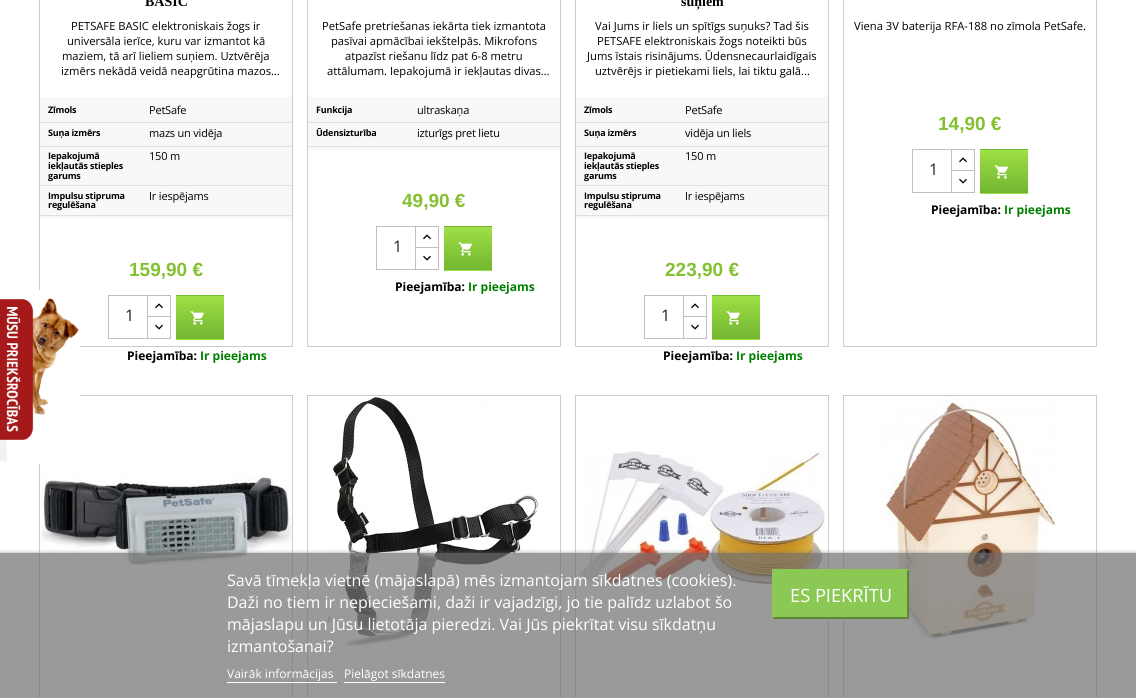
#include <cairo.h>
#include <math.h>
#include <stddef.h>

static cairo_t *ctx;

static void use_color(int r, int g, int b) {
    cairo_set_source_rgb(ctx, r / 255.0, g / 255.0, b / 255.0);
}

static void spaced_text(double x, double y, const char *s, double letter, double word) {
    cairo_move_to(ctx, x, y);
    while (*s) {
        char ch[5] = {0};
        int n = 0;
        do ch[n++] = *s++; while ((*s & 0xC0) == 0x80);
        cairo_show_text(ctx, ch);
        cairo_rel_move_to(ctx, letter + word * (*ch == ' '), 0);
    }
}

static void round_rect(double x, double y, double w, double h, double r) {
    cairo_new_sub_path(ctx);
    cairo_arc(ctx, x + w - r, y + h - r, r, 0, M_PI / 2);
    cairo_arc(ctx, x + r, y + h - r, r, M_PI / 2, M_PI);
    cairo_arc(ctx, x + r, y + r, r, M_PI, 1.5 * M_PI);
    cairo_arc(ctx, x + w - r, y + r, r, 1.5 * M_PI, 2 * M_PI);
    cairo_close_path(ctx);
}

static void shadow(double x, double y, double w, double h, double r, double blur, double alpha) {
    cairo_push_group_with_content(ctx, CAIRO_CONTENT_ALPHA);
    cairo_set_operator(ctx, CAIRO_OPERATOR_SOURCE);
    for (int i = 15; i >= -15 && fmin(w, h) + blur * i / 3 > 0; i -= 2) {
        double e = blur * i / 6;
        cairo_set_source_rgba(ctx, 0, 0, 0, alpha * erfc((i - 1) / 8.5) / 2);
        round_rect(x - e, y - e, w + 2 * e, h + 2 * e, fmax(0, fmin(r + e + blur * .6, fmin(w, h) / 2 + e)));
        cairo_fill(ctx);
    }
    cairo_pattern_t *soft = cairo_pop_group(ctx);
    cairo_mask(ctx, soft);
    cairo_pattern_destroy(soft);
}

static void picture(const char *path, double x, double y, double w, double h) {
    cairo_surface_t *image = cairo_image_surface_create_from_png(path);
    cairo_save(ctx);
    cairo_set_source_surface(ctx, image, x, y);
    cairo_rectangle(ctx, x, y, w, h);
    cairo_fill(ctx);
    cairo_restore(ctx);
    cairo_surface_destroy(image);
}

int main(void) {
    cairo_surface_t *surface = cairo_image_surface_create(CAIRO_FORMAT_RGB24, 1136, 698);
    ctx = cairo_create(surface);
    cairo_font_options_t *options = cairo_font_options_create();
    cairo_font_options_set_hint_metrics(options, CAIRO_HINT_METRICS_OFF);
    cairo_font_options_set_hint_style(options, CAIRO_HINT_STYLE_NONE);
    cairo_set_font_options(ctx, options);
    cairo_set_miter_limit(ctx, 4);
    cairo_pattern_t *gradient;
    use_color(255, 255, 255);
    cairo_paint(ctx);
    cairo_rectangle(ctx, 39.5, -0.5, 253, 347);
    use_color(204, 204, 204);
    cairo_set_line_width(ctx, 1);
    cairo_stroke(ctx);
    cairo_rectangle(ctx, 39.5, 395.5, 253, 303);
    cairo_stroke(ctx);
    picture("img1.png", 0, 290, 80, 174);
    cairo_select_font_face(ctx, "Liberation Serif", CAIRO_FONT_SLANT_NORMAL, CAIRO_FONT_WEIGHT_BOLD);
    cairo_set_font_size(ctx, 14);
    use_color(0, 0, 0);
    cairo_move_to(ctx, 145, 6);
    cairo_show_text(ctx, "BASIC");
    cairo_select_font_face(ctx, "Open Sans", CAIRO_FONT_SLANT_NORMAL, CAIRO_FONT_WEIGHT_NORMAL);
    cairo_set_font_size(ctx, 11.2);
    cairo_move_to(ctx, 71, 30);
    cairo_show_text(ctx, "PETSAFE BASIC elektroniskais žogs ir");
    cairo_move_to(ctx, 67, 45);
    cairo_show_text(ctx, "universāla ierīce, kuru var izmantot kā");
    cairo_move_to(ctx, 62, 60);
    cairo_show_text(ctx, "maziem, tā arī lieliem suņiem. Uztvērēja");
    cairo_move_to(ctx, 61, 75);
    cairo_show_text(ctx, "izmērs nekādā veidā neapgrūtina mazos…");
    use_color(248, 248, 248);
    cairo_rectangle(ctx, 40, 97, 252, 122);
    cairo_fill(ctx);
    use_color(223, 223, 223);
    cairo_rectangle(ctx, 40, 122, 252, 1);
    cairo_fill(ctx);
    cairo_select_font_face(ctx, "Open Sans", CAIRO_FONT_SLANT_NORMAL, CAIRO_FONT_WEIGHT_BOLD);
    cairo_set_font_size(ctx, 9);
    use_color(0, 0, 0);
    spaced_text(48, 113, "Zīmols", -0.2, 0);
    cairo_select_font_face(ctx, "Open Sans", CAIRO_FONT_SLANT_NORMAL, CAIRO_FONT_WEIGHT_NORMAL);
    cairo_set_font_size(ctx, 11);
    spaced_text(149, 114, "PetSafe", -0.2, 0);
    use_color(223, 223, 223);
    cairo_rectangle(ctx, 40, 146, 252, 1);
    cairo_fill(ctx);
    cairo_select_font_face(ctx, "Open Sans", CAIRO_FONT_SLANT_NORMAL, CAIRO_FONT_WEIGHT_BOLD);
    cairo_set_font_size(ctx, 9);
    use_color(0, 0, 0);
    spaced_text(48, 136, "Suņa izmērs", -0.2, 0);
    cairo_select_font_face(ctx, "Open Sans", CAIRO_FONT_SLANT_NORMAL, CAIRO_FONT_WEIGHT_NORMAL);
    cairo_set_font_size(ctx, 11);
    spaced_text(149, 137, "mazs un vidēja", -0.2, 0);
    use_color(223, 223, 223);
    cairo_rectangle(ctx, 40, 185, 252, 1);
    cairo_fill(ctx);
    cairo_select_font_face(ctx, "Open Sans", CAIRO_FONT_SLANT_NORMAL, CAIRO_FONT_WEIGHT_BOLD);
    cairo_set_font_size(ctx, 9);
    use_color(0, 0, 0);
    spaced_text(48, 159, "Iepakojumā", -0.2, 0);
    spaced_text(48, 169, "iekļautās stieples", -0.2, 0);
    spaced_text(48, 179, "garums", -0.2, 0);
    cairo_select_font_face(ctx, "Open Sans", CAIRO_FONT_SLANT_NORMAL, CAIRO_FONT_WEIGHT_NORMAL);
    cairo_set_font_size(ctx, 11);
    spaced_text(149, 160, "150 m", -0.2, 0);
    use_color(223, 223, 223);
    cairo_rectangle(ctx, 40, 215, 252, 1);
    cairo_fill(ctx);
    cairo_select_font_face(ctx, "Open Sans", CAIRO_FONT_SLANT_NORMAL, CAIRO_FONT_WEIGHT_BOLD);
    cairo_set_font_size(ctx, 9);
    use_color(0, 0, 0);
    spaced_text(48, 199, "Impulsu stipruma", -0.2, 0);
    spaced_text(48, 208, "regulēšana", -0.2, 0);
    cairo_select_font_face(ctx, "Open Sans", CAIRO_FONT_SLANT_NORMAL, CAIRO_FONT_WEIGHT_NORMAL);
    cairo_set_font_size(ctx, 11);
    spaced_text(149, 200, "Ir iespējams", -0.2, 0);
    cairo_select_font_face(ctx, "Liberation Sans", CAIRO_FONT_SLANT_NORMAL, CAIRO_FONT_WEIGHT_BOLD);
    cairo_set_font_size(ctx, 19);
    use_color(131, 193, 48);
    cairo_move_to(ctx, 129, 276);
    cairo_show_text(ctx, "159,90 €");
    cairo_rectangle(ctx, 147.5, 295.5, 23, 22);
    use_color(191, 191, 191);
    cairo_stroke(ctx);
    use_color(255, 255, 255);
    cairo_rectangle(ctx, 148, 317, 22, 1);
    cairo_fill(ctx);
    cairo_rectangle(ctx, 147.5, 316.5, 23, 22);
    use_color(191, 191, 191);
    cairo_stroke(ctx);
    cairo_rectangle(ctx, 108.5, 295.5, 39, 43);
    cairo_stroke(ctx);
    cairo_select_font_face(ctx, "Open Sans", CAIRO_FONT_SLANT_NORMAL, CAIRO_FONT_WEIGHT_NORMAL);
    cairo_set_font_size(ctx, 16);
    use_color(35, 35, 35);
    cairo_move_to(ctx, 125, 321);
    cairo_show_text(ctx, "1");
    picture("img2.png", 155, 303, 8, 6);
    picture("img3.png", 155, 324, 8, 6);
    gradient = cairo_pattern_create_linear(200, 253, 200, 296);
    cairo_pattern_add_color_stop_rgba(gradient, 0, 0.616, 0.875, 0.267, 1);
    cairo_pattern_add_color_stop_rgba(gradient, 1, 0.451, 0.714, 0.196, 1);
    cairo_set_source(ctx, gradient);
    cairo_pattern_destroy(gradient);
    cairo_rectangle(ctx, 176, 295, 48, 1);
    cairo_fill(ctx);
    gradient = cairo_pattern_create_linear(200, 296, 200, 339);
    cairo_pattern_add_color_stop_rgba(gradient, 0, 0.616, 0.875, 0.267, 1);
    cairo_pattern_add_color_stop_rgba(gradient, 1, 0.451, 0.714, 0.196, 1);
    cairo_set_source(ctx, gradient);
    cairo_pattern_destroy(gradient);
    cairo_rectangle(ctx, 176, 296, 48, 43);
    cairo_fill(ctx);
    gradient = cairo_pattern_create_linear(200, 339, 200, 382);
    cairo_pattern_add_color_stop_rgba(gradient, 0, 0.616, 0.875, 0.267, 1);
    cairo_pattern_add_color_stop_rgba(gradient, 1, 0.451, 0.714, 0.196, 1);
    cairo_set_source(ctx, gradient);
    cairo_pattern_destroy(gradient);
    cairo_rectangle(ctx, 176, 339, 48, 1);
    cairo_fill(ctx);
    picture("img4.png", 190, 311, 14, 14);
    cairo_select_font_face(ctx, "Open Sans", CAIRO_FONT_SLANT_NORMAL, CAIRO_FONT_WEIGHT_BOLD);
    cairo_set_font_size(ctx, 12);
    use_color(0, 0, 0);
    cairo_move_to(ctx, 127, 360);
    cairo_show_text(ctx, "Pieejamība:");
    use_color(0, 128, 0);
    cairo_move_to(ctx, 200, 360);
    cairo_show_text(ctx, "Ir pieejams");
    cairo_rectangle(ctx, 307.5, -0.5, 253, 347);
    use_color(204, 204, 204);
    cairo_stroke(ctx);
    cairo_select_font_face(ctx, "Open Sans", CAIRO_FONT_SLANT_NORMAL, CAIRO_FONT_WEIGHT_NORMAL);
    cairo_set_font_size(ctx, 11.2);
    use_color(0, 0, 0);
    cairo_move_to(ctx, 322, 30);
    cairo_show_text(ctx, "PetSafe pretriešanas iekārta tiek izmantota");
    cairo_move_to(ctx, 331, 45);
    cairo_show_text(ctx, "pasīvai apmācībai iekštelpās. Mikrofons");
    cairo_move_to(ctx, 345, 60);
    cairo_show_text(ctx, "atpazīst riešanu līdz pat 6-8 metru");
    cairo_move_to(ctx, 327, 75);
    cairo_show_text(ctx, "attālumam. Iepakojumā ir iekļautas divas…");
    use_color(248, 248, 248);
    cairo_rectangle(ctx, 308, 97, 252, 53);
    cairo_fill(ctx);
    use_color(223, 223, 223);
    cairo_rectangle(ctx, 308, 122, 252, 1);
    cairo_fill(ctx);
    cairo_select_font_face(ctx, "Open Sans", CAIRO_FONT_SLANT_NORMAL, CAIRO_FONT_WEIGHT_BOLD);
    cairo_set_font_size(ctx, 9);
    use_color(0, 0, 0);
    spaced_text(316, 113, "Funkcija", -0.2, 0);
    cairo_select_font_face(ctx, "Open Sans", CAIRO_FONT_SLANT_NORMAL, CAIRO_FONT_WEIGHT_NORMAL);
    cairo_set_font_size(ctx, 11);
    spaced_text(417, 114, "ultraskaņa", -0.2, 0);
    use_color(223, 223, 223);
    cairo_rectangle(ctx, 308, 146, 252, 1);
    cairo_fill(ctx);
    cairo_select_font_face(ctx, "Open Sans", CAIRO_FONT_SLANT_NORMAL, CAIRO_FONT_WEIGHT_BOLD);
    cairo_set_font_size(ctx, 9);
    use_color(0, 0, 0);
    spaced_text(316, 136, "Ūdensizturība", -0.2, 0);
    cairo_select_font_face(ctx, "Open Sans", CAIRO_FONT_SLANT_NORMAL, CAIRO_FONT_WEIGHT_NORMAL);
    cairo_set_font_size(ctx, 11);
    spaced_text(417, 137, "izturīgs pret lietu", -0.2, 0);
    cairo_select_font_face(ctx, "Liberation Sans", CAIRO_FONT_SLANT_NORMAL, CAIRO_FONT_WEIGHT_BOLD);
    cairo_set_font_size(ctx, 19);
    use_color(131, 193, 48);
    cairo_move_to(ctx, 402, 207);
    cairo_show_text(ctx, "49,90 €");
    cairo_rectangle(ctx, 415.5, 226.5, 23, 22);
    use_color(191, 191, 191);
    cairo_stroke(ctx);
    use_color(255, 255, 255);
    cairo_rectangle(ctx, 416, 248, 22, 1);
    cairo_fill(ctx);
    cairo_rectangle(ctx, 415.5, 247.5, 23, 22);
    use_color(191, 191, 191);
    cairo_stroke(ctx);
    cairo_rectangle(ctx, 376.5, 226.5, 39, 43);
    cairo_stroke(ctx);
    cairo_select_font_face(ctx, "Open Sans", CAIRO_FONT_SLANT_NORMAL, CAIRO_FONT_WEIGHT_NORMAL);
    cairo_set_font_size(ctx, 16);
    use_color(35, 35, 35);
    cairo_move_to(ctx, 393, 252);
    cairo_show_text(ctx, "1");
    picture("img2.png", 423, 234, 8, 6);
    picture("img3.png", 423, 255, 8, 6);
    gradient = cairo_pattern_create_linear(468, 184, 468, 227);
    cairo_pattern_add_color_stop_rgba(gradient, 0, 0.616, 0.875, 0.267, 1);
    cairo_pattern_add_color_stop_rgba(gradient, 1, 0.451, 0.714, 0.196, 1);
    cairo_set_source(ctx, gradient);
    cairo_pattern_destroy(gradient);
    cairo_rectangle(ctx, 444, 226, 48, 1);
    cairo_fill(ctx);
    gradient = cairo_pattern_create_linear(468, 227, 468, 270);
    cairo_pattern_add_color_stop_rgba(gradient, 0, 0.616, 0.875, 0.267, 1);
    cairo_pattern_add_color_stop_rgba(gradient, 1, 0.451, 0.714, 0.196, 1);
    cairo_set_source(ctx, gradient);
    cairo_pattern_destroy(gradient);
    cairo_rectangle(ctx, 444, 227, 48, 43);
    cairo_fill(ctx);
    gradient = cairo_pattern_create_linear(468, 270, 468, 313);
    cairo_pattern_add_color_stop_rgba(gradient, 0, 0.616, 0.875, 0.267, 1);
    cairo_pattern_add_color_stop_rgba(gradient, 1, 0.451, 0.714, 0.196, 1);
    cairo_set_source(ctx, gradient);
    cairo_pattern_destroy(gradient);
    cairo_rectangle(ctx, 444, 270, 48, 1);
    cairo_fill(ctx);
    picture("img4.png", 458, 242, 14, 14);
    cairo_select_font_face(ctx, "Open Sans", CAIRO_FONT_SLANT_NORMAL, CAIRO_FONT_WEIGHT_BOLD);
    cairo_set_font_size(ctx, 12);
    use_color(0, 0, 0);
    cairo_move_to(ctx, 395, 291);
    cairo_show_text(ctx, "Pieejamība:");
    use_color(0, 128, 0);
    cairo_move_to(ctx, 468, 291);
    cairo_show_text(ctx, "Ir pieejams");
    cairo_rectangle(ctx, 575.5, -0.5, 253, 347);
    use_color(204, 204, 204);
    cairo_stroke(ctx);
    cairo_select_font_face(ctx, "Liberation Serif", CAIRO_FONT_SLANT_NORMAL, CAIRO_FONT_WEIGHT_BOLD);
    cairo_set_font_size(ctx, 14);
    use_color(0, 0, 0);
    cairo_move_to(ctx, 681, 6);
    cairo_show_text(ctx, "suņiem");
    cairo_select_font_face(ctx, "Open Sans", CAIRO_FONT_SLANT_NORMAL, CAIRO_FONT_WEIGHT_NORMAL);
    cairo_set_font_size(ctx, 11.2);
    cairo_move_to(ctx, 595, 30);
    cairo_show_text(ctx, "Vai Jums ir liels un spītīgs suņuks? Tad šis");
    cairo_move_to(ctx, 597, 45);
    cairo_show_text(ctx, "PETSAFE elektroniskais žogs noteikti būs");
    cairo_move_to(ctx, 587, 60);
    cairo_show_text(ctx, "Jums īstais risinājums. Ūdensnecaurlaidīgais");
    cairo_move_to(ctx, 595, 75);
    cairo_show_text(ctx, "uztvērējs ir pietiekami liels, lai tiktu galā...");
    use_color(248, 248, 248);
    cairo_rectangle(ctx, 576, 97, 252, 122);
    cairo_fill(ctx);
    use_color(223, 223, 223);
    cairo_rectangle(ctx, 576, 122, 252, 1);
    cairo_fill(ctx);
    cairo_select_font_face(ctx, "Open Sans", CAIRO_FONT_SLANT_NORMAL, CAIRO_FONT_WEIGHT_BOLD);
    cairo_set_font_size(ctx, 9);
    use_color(0, 0, 0);
    spaced_text(584, 113, "Zīmols", -0.2, 0);
    cairo_select_font_face(ctx, "Open Sans", CAIRO_FONT_SLANT_NORMAL, CAIRO_FONT_WEIGHT_NORMAL);
    cairo_set_font_size(ctx, 11);
    spaced_text(685, 114, "PetSafe", -0.2, 0);
    use_color(223, 223, 223);
    cairo_rectangle(ctx, 576, 146, 252, 1);
    cairo_fill(ctx);
    cairo_select_font_face(ctx, "Open Sans", CAIRO_FONT_SLANT_NORMAL, CAIRO_FONT_WEIGHT_BOLD);
    cairo_set_font_size(ctx, 9);
    use_color(0, 0, 0);
    spaced_text(584, 136, "Suņa izmērs", -0.2, 0);
    cairo_select_font_face(ctx, "Open Sans", CAIRO_FONT_SLANT_NORMAL, CAIRO_FONT_WEIGHT_NORMAL);
    cairo_set_font_size(ctx, 11);
    spaced_text(685, 137, "vidēja un liels", -0.2, 0);
    use_color(223, 223, 223);
    cairo_rectangle(ctx, 576, 185, 252, 1);
    cairo_fill(ctx);
    cairo_select_font_face(ctx, "Open Sans", CAIRO_FONT_SLANT_NORMAL, CAIRO_FONT_WEIGHT_BOLD);
    cairo_set_font_size(ctx, 9);
    use_color(0, 0, 0);
    spaced_text(584, 159, "Iepakojumā", -0.2, 0);
    spaced_text(584, 169, "iekļautās stieples", -0.2, 0);
    spaced_text(584, 179, "garums", -0.2, 0);
    cairo_select_font_face(ctx, "Open Sans", CAIRO_FONT_SLANT_NORMAL, CAIRO_FONT_WEIGHT_NORMAL);
    cairo_set_font_size(ctx, 11);
    spaced_text(685, 160, "150 m", -0.2, 0);
    use_color(223, 223, 223);
    cairo_rectangle(ctx, 576, 215, 252, 1);
    cairo_fill(ctx);
    cairo_select_font_face(ctx, "Open Sans", CAIRO_FONT_SLANT_NORMAL, CAIRO_FONT_WEIGHT_BOLD);
    cairo_set_font_size(ctx, 9);
    use_color(0, 0, 0);
    spaced_text(584, 199, "Impulsu stipruma", -0.2, 0);
    spaced_text(584, 208, "regulēšana", -0.2, 0);
    cairo_select_font_face(ctx, "Open Sans", CAIRO_FONT_SLANT_NORMAL, CAIRO_FONT_WEIGHT_NORMAL);
    cairo_set_font_size(ctx, 11);
    spaced_text(685, 200, "Ir iespējams", -0.2, 0);
    cairo_select_font_face(ctx, "Liberation Sans", CAIRO_FONT_SLANT_NORMAL, CAIRO_FONT_WEIGHT_BOLD);
    cairo_set_font_size(ctx, 19);
    use_color(131, 193, 48);
    cairo_move_to(ctx, 665, 276);
    cairo_show_text(ctx, "223,90 €");
    cairo_rectangle(ctx, 683.5, 295.5, 23, 22);
    use_color(191, 191, 191);
    cairo_stroke(ctx);
    use_color(255, 255, 255);
    cairo_rectangle(ctx, 684, 317, 22, 1);
    cairo_fill(ctx);
    cairo_rectangle(ctx, 683.5, 316.5, 23, 22);
    use_color(191, 191, 191);
    cairo_stroke(ctx);
    cairo_rectangle(ctx, 644.5, 295.5, 39, 43);
    cairo_stroke(ctx);
    cairo_select_font_face(ctx, "Open Sans", CAIRO_FONT_SLANT_NORMAL, CAIRO_FONT_WEIGHT_NORMAL);
    cairo_set_font_size(ctx, 16);
    use_color(35, 35, 35);
    cairo_move_to(ctx, 661, 321);
    cairo_show_text(ctx, "1");
    picture("img2.png", 691, 303, 8, 6);
    picture("img3.png", 691, 324, 8, 6);
    gradient = cairo_pattern_create_linear(736, 253, 736, 296);
    cairo_pattern_add_color_stop_rgba(gradient, 0, 0.616, 0.875, 0.267, 1);
    cairo_pattern_add_color_stop_rgba(gradient, 1, 0.451, 0.714, 0.196, 1);
    cairo_set_source(ctx, gradient);
    cairo_pattern_destroy(gradient);
    cairo_rectangle(ctx, 712, 295, 48, 1);
    cairo_fill(ctx);
    gradient = cairo_pattern_create_linear(736, 296, 736, 339);
    cairo_pattern_add_color_stop_rgba(gradient, 0, 0.616, 0.875, 0.267, 1);
    cairo_pattern_add_color_stop_rgba(gradient, 1, 0.451, 0.714, 0.196, 1);
    cairo_set_source(ctx, gradient);
    cairo_pattern_destroy(gradient);
    cairo_rectangle(ctx, 712, 296, 48, 43);
    cairo_fill(ctx);
    gradient = cairo_pattern_create_linear(736, 339, 736, 382);
    cairo_pattern_add_color_stop_rgba(gradient, 0, 0.616, 0.875, 0.267, 1);
    cairo_pattern_add_color_stop_rgba(gradient, 1, 0.451, 0.714, 0.196, 1);
    cairo_set_source(ctx, gradient);
    cairo_pattern_destroy(gradient);
    cairo_rectangle(ctx, 712, 339, 48, 1);
    cairo_fill(ctx);
    picture("img4.png", 726, 311, 14, 14);
    cairo_select_font_face(ctx, "Open Sans", CAIRO_FONT_SLANT_NORMAL, CAIRO_FONT_WEIGHT_BOLD);
    cairo_set_font_size(ctx, 12);
    use_color(0, 0, 0);
    cairo_move_to(ctx, 663, 360);
    cairo_show_text(ctx, "Pieejamība:");
    use_color(0, 128, 0);
    cairo_move_to(ctx, 736, 360);
    cairo_show_text(ctx, "Ir pieejams");
    cairo_rectangle(ctx, 843.5, -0.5, 253, 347);
    use_color(204, 204, 204);
    cairo_stroke(ctx);
    cairo_select_font_face(ctx, "Open Sans", CAIRO_FONT_SLANT_NORMAL, CAIRO_FONT_WEIGHT_NORMAL);
    cairo_set_font_size(ctx, 11.2);
    use_color(0, 0, 0);
    cairo_move_to(ctx, 854, 30);
    cairo_show_text(ctx, "Viena 3V baterija RFA-188 no zīmola PetSafe.");
    cairo_select_font_face(ctx, "Liberation Sans", CAIRO_FONT_SLANT_NORMAL, CAIRO_FONT_WEIGHT_BOLD);
    cairo_set_font_size(ctx, 19);
    use_color(131, 193, 48);
    cairo_move_to(ctx, 938, 130);
    cairo_show_text(ctx, "14,90 €");
    cairo_rectangle(ctx, 951.5, 149.5, 23, 22);
    use_color(191, 191, 191);
    cairo_stroke(ctx);
    use_color(255, 255, 255);
    cairo_rectangle(ctx, 952, 171, 22, 1);
    cairo_fill(ctx);
    cairo_rectangle(ctx, 951.5, 170.5, 23, 22);
    use_color(191, 191, 191);
    cairo_stroke(ctx);
    cairo_rectangle(ctx, 912.5, 149.5, 39, 43);
    cairo_stroke(ctx);
    cairo_select_font_face(ctx, "Open Sans", CAIRO_FONT_SLANT_NORMAL, CAIRO_FONT_WEIGHT_NORMAL);
    cairo_set_font_size(ctx, 16);
    use_color(35, 35, 35);
    cairo_move_to(ctx, 929, 175);
    cairo_show_text(ctx, "1");
    picture("img2.png", 959, 157, 8, 6);
    picture("img3.png", 959, 178, 8, 6);
    gradient = cairo_pattern_create_linear(1004, 107, 1004, 150);
    cairo_pattern_add_color_stop_rgba(gradient, 0, 0.616, 0.875, 0.267, 1);
    cairo_pattern_add_color_stop_rgba(gradient, 1, 0.451, 0.714, 0.196, 1);
    cairo_set_source(ctx, gradient);
    cairo_pattern_destroy(gradient);
    cairo_rectangle(ctx, 980, 149, 48, 1);
    cairo_fill(ctx);
    gradient = cairo_pattern_create_linear(1004, 150, 1004, 193);
    cairo_pattern_add_color_stop_rgba(gradient, 0, 0.616, 0.875, 0.267, 1);
    cairo_pattern_add_color_stop_rgba(gradient, 1, 0.451, 0.714, 0.196, 1);
    cairo_set_source(ctx, gradient);
    cairo_pattern_destroy(gradient);
    cairo_rectangle(ctx, 980, 150, 48, 43);
    cairo_fill(ctx);
    gradient = cairo_pattern_create_linear(1004, 193, 1004, 236);
    cairo_pattern_add_color_stop_rgba(gradient, 0, 0.616, 0.875, 0.267, 1);
    cairo_pattern_add_color_stop_rgba(gradient, 1, 0.451, 0.714, 0.196, 1);
    cairo_set_source(ctx, gradient);
    cairo_pattern_destroy(gradient);
    cairo_rectangle(ctx, 980, 193, 48, 1);
    cairo_fill(ctx);
    picture("img4.png", 994, 165, 14, 14);
    cairo_select_font_face(ctx, "Open Sans", CAIRO_FONT_SLANT_NORMAL, CAIRO_FONT_WEIGHT_BOLD);
    cairo_set_font_size(ctx, 12);
    use_color(0, 0, 0);
    cairo_move_to(ctx, 931, 214);
    cairo_show_text(ctx, "Pieejamība:");
    use_color(0, 128, 0);
    cairo_move_to(ctx, 1004, 214);
    cairo_show_text(ctx, "Ir pieejams");
    picture("img5.png", 41, 476, 250, 89);
    cairo_rectangle(ctx, 307.5, 395.5, 253, 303);
    use_color(204, 204, 204);
    cairo_stroke(ctx);
    picture("img6.png", 328, 397, 210, 249);
    cairo_rectangle(ctx, 575.5, 395.5, 253, 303);
    cairo_stroke(ctx);
    picture("img7.png", 577, 451, 248, 138);
    cairo_rectangle(ctx, 843.5, 395.5, 253, 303);
    cairo_stroke(ctx);
    picture("img8.png", 881, 396, 178, 243);
    cairo_save(ctx);
    cairo_rectangle(ctx, 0, 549, 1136, 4);
    cairo_clip(ctx);
    use_color(112, 112, 112);
    shadow(0, 554, 1136, 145, 0, 2.5, 1);
    cairo_restore(ctx);
    cairo_set_source_rgba(ctx, 0.439, 0.439, 0.439, 0.7);
    cairo_rectangle(ctx, 0, 553, 1136, 145);
    cairo_fill(ctx);
    cairo_select_font_face(ctx, "Open Sans", CAIRO_FONT_SLANT_NORMAL, CAIRO_FONT_WEIGHT_NORMAL);
    cairo_set_font_size(ctx, 16);
    use_color(255, 255, 255);
    cairo_move_to(ctx, 227, 586);
    cairo_show_text(ctx, "Savā tīmekļa vietnē (mājaslapā) mēs izmantojam sīkdatnes (cookies).");
    cairo_move_to(ctx, 227, 608);
    cairo_show_text(ctx, "Daži no tiem ir nepieciešami, daži ir vajadzīgi, jo tie palīdz uzlabot šo");
    cairo_move_to(ctx, 227, 630);
    cairo_show_text(ctx, "mājaslapu un Jūsu lietotāja pieredzi. Vai Jūs piekrītat visu sīkdatņu");
    cairo_move_to(ctx, 227, 652);
    cairo_show_text(ctx, "izmantošanai?");
    cairo_set_font_size(ctx, 12);
    cairo_move_to(ctx, 227, 678);
    cairo_show_text(ctx, "Vairāk informācijas");
    cairo_rectangle(ctx, 227, 682, 110, 1);
    cairo_fill(ctx);
    cairo_move_to(ctx, 344, 678);
    cairo_show_text(ctx, "Pielāgot sīkdatnes");
    cairo_rectangle(ctx, 344, 682, 101, 1);
    cairo_fill(ctx);
    use_color(139, 201, 84);
    cairo_rectangle(ctx, 772, 569, 137, 50);
    cairo_fill(ctx);
    use_color(93, 134, 56);
    cairo_new_path(ctx);
    cairo_move_to(ctx, 909, 569);
    cairo_line_to(ctx, 909, 619);
    cairo_line_to(ctx, 907, 617);
    cairo_line_to(ctx, 907, 571);
    cairo_close_path(ctx);
    cairo_fill(ctx);
    cairo_new_path(ctx);
    cairo_move_to(ctx, 909, 619);
    cairo_line_to(ctx, 772, 619);
    cairo_line_to(ctx, 774, 617);
    cairo_line_to(ctx, 907, 617);
    cairo_close_path(ctx);
    cairo_fill(ctx);
    use_color(139, 201, 84);
    cairo_new_path(ctx);
    cairo_move_to(ctx, 772, 619);
    cairo_line_to(ctx, 772, 569);
    cairo_line_to(ctx, 774, 571);
    cairo_line_to(ctx, 774, 617);
    cairo_close_path(ctx);
    cairo_fill(ctx);
    cairo_set_font_size(ctx, 18.25);
    use_color(255, 255, 255);
    cairo_move_to(ctx, 790, 602);
    cairo_show_text(ctx, "ES PIEKRĪTU");
    cairo_surface_write_to_png(surface, "result.png");
    cairo_font_options_destroy(options);
    cairo_destroy(ctx);
    cairo_surface_destroy(surface);
    return 0;
}
